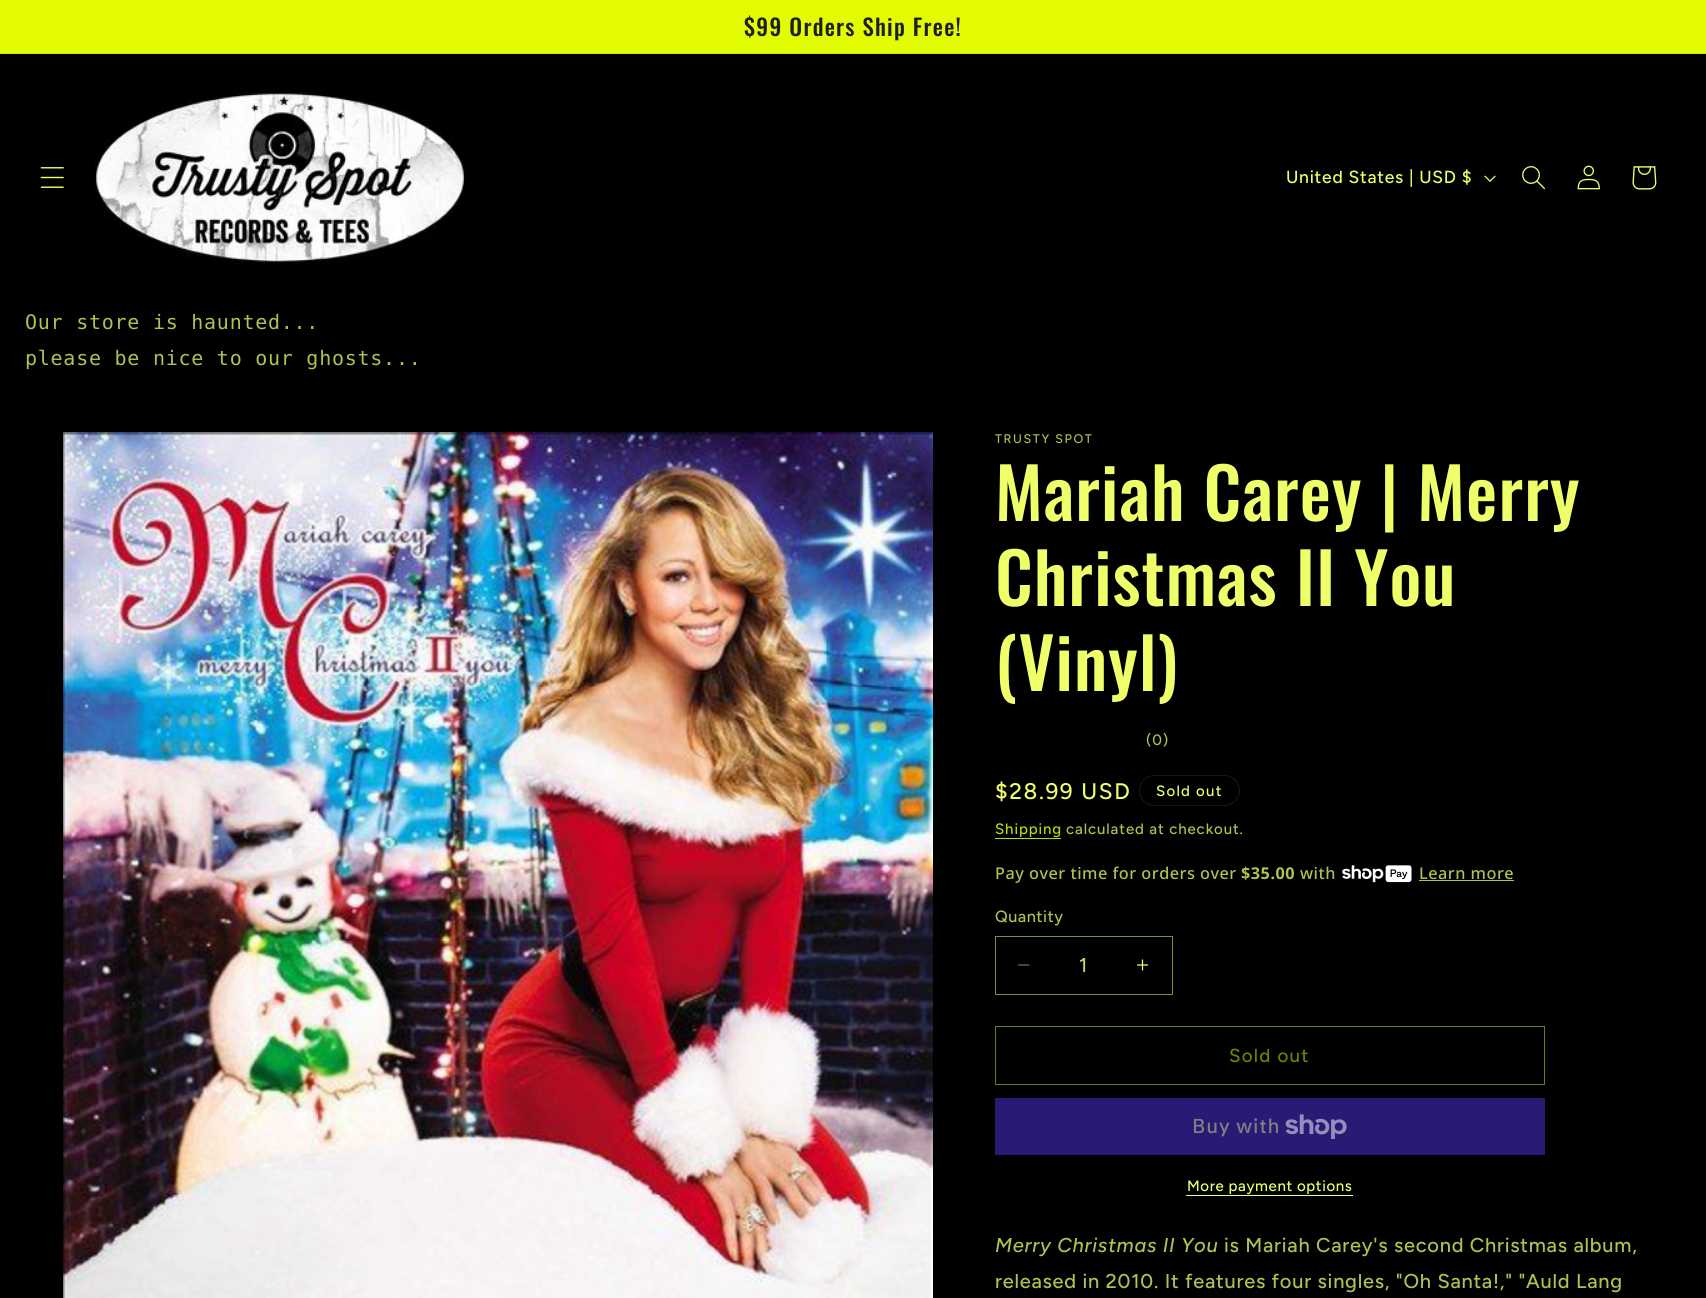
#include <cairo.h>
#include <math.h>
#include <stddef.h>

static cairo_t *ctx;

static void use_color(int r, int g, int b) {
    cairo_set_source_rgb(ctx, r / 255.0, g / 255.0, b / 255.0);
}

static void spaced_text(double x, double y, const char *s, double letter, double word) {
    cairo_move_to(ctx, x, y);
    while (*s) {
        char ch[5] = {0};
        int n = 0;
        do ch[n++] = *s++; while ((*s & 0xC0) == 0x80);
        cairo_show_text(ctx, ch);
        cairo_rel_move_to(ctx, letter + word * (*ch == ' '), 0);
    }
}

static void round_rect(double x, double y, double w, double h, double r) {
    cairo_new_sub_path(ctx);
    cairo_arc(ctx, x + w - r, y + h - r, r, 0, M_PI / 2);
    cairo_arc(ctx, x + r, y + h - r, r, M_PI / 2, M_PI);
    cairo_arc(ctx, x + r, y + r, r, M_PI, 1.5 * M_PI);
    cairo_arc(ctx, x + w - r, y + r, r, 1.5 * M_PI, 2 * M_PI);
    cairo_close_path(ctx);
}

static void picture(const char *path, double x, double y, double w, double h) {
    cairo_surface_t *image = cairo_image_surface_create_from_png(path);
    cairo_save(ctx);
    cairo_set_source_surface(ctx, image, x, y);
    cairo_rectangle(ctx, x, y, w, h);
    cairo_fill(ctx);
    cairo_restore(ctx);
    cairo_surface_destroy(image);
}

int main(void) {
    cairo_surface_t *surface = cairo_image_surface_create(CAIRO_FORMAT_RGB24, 1706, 1298);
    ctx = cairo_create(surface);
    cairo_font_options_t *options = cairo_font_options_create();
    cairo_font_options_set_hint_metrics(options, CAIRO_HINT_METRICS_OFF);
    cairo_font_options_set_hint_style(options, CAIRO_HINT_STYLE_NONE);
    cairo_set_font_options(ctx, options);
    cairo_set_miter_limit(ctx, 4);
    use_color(0, 0, 0);
    cairo_paint(ctx);
    use_color(227, 252, 2);
    cairo_rectangle(ctx, 0, 0, 1706, 53);
    cairo_fill(ctx);
    use_color(211, 234, 4);
    cairo_rectangle(ctx, 0, 53, 1706, 1);
    cairo_fill(ctx);
    cairo_select_font_face(ctx, "Oswald Medium", CAIRO_FONT_SLANT_NORMAL, CAIRO_FONT_WEIGHT_NORMAL);
    cairo_set_font_size(ctx, 22.75);
    use_color(31, 31, 33);
    spaced_text(744, 36, "$99 Orders Ship Free!", 1.25, 0);
    picture("img1.png", 40, 167, 24, 21);
    picture("img2.png", 94, 89, 372, 176);
    cairo_select_font_face(ctx, "Figtree Medium", CAIRO_FONT_SLANT_NORMAL, CAIRO_FONT_WEIGHT_NORMAL);
    cairo_set_font_size(ctx, 17.5);
    use_color(238, 255, 105);
    spaced_text(1286, 183, "United States | USD $", 0.75, 0);
    picture("img3.png", 1484, 175, 12, 7);
    picture("img4.png", 1522, 166, 23, 24);
    picture("img5.png", 1577, 165, 23, 25);
    picture("img6.png", 1632, 166, 25, 24);
    cairo_select_font_face(ctx, "DejaVu Sans Mono", CAIRO_FONT_SLANT_NORMAL, CAIRO_FONT_WEIGHT_NORMAL);
    cairo_set_font_size(ctx, 20);
    use_color(179, 191, 79);
    spaced_text(25, 329, "Our store is haunted...", 0.75, 0);
    spaced_text(25, 365, "please be nice to our ghosts...", 0.75, 0);
    picture("img7.png", 63, 432, 870, 866);
    cairo_select_font_face(ctx, "Figtree Medium", CAIRO_FONT_SLANT_NORMAL, CAIRO_FONT_WEIGHT_NORMAL);
    cairo_set_font_size(ctx, 12.5);
    spaced_text(995, 443, "TRUSTY SPOT", 1.6, 0);
    cairo_select_font_face(ctx, "Oswald Medium", CAIRO_FONT_SLANT_NORMAL, CAIRO_FONT_WEIGHT_NORMAL);
    cairo_set_font_size(ctx, 70);
    use_color(238, 255, 105);
    spaced_text(995, 521, "Mariah Carey | Merry", 1.05, 0);
    spaced_text(995, 606, "Christmas II You", 1.05, 0);
    spaced_text(995, 691, "(Vinyl)", 1.05, 0);
    cairo_select_font_face(ctx, "Figtree Medium", CAIRO_FONT_SLANT_NORMAL, CAIRO_FONT_WEIGHT_NORMAL);
    cairo_set_font_size(ctx, 15);
    use_color(179, 191, 79);
    spaced_text(1146, 745, "(0)", 0.9, 0);
    cairo_set_font_size(ctx, 22.5);
    use_color(238, 255, 105);
    spaced_text(995, 799, "$28.99 USD", 1.6, 0);
    round_rect(1139.5, 775.5, 100, 30, 15);
    use_color(24, 26, 11);
    cairo_set_line_width(ctx, 1);
    cairo_stroke(ctx);
    cairo_set_font_size(ctx, 15);
    use_color(238, 255, 105);
    spaced_text(1156, 796, "Sold out", 1.25, 0);
    use_color(193, 214, 2);
    spaced_text(995, 834, "Shipping", 0.9, 0);
    cairo_rectangle(ctx, 995, 838, 66, 1);
    cairo_fill(ctx);
    use_color(179, 191, 79);
    spaced_text(1066, 834, "calculated at checkout.", 0.9, 0);
    cairo_select_font_face(ctx, "Noto Sans Medium", CAIRO_FONT_SLANT_NORMAL, CAIRO_FONT_WEIGHT_NORMAL);
    cairo_set_font_size(ctx, 16.25);
    spaced_text(995, 879, "Pay over time for orders over", 0.5, 0);
    cairo_select_font_face(ctx, "Noto Sans", CAIRO_FONT_SLANT_NORMAL, CAIRO_FONT_WEIGHT_BOLD);
    spaced_text(1241, 879, "$35.00", 0.5, 0);
    cairo_select_font_face(ctx, "Noto Sans Medium", CAIRO_FONT_SLANT_NORMAL, CAIRO_FONT_WEIGHT_NORMAL);
    spaced_text(1300, 879, "with", 0.5, 0);
    picture("img8.png", 1342, 865, 70, 18);
    spaced_text(1419, 879, "Learn more", 0.5, 0);
    cairo_rectangle(ctx, 1419, 880, 95, 1);
    cairo_fill(ctx);
    cairo_select_font_face(ctx, "Figtree Medium", CAIRO_FONT_SLANT_NORMAL, CAIRO_FONT_WEIGHT_NORMAL);
    spaced_text(995, 922, "Quantity", 0.5, 0);
    picture("img9.png", 1018, 964, 12, 2);
    picture("img10.png", 1137, 959, 12, 12);
    cairo_rectangle(ctx, 995.5, 936.5, 177, 58);
    use_color(131, 140, 58);
    cairo_stroke(ctx);
    cairo_set_font_size(ctx, 20);
    use_color(202, 217, 89);
    cairo_move_to(ctx, 1079, 972);
    cairo_show_text(ctx, "1");
    cairo_rectangle(ctx, 995.5, 1026.5, 549, 58);
    use_color(114, 126, 1);
    cairo_stroke(ctx);
    cairo_set_font_size(ctx, 18.75);
    spaced_text(1229, 1062, "Sold out", 1.25, 0);
    use_color(42, 26, 118);
    cairo_rectangle(ctx, 995, 1098, 550, 57);
    cairo_fill(ctx);
    cairo_select_font_face(ctx, "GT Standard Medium", CAIRO_FONT_SLANT_NORMAL, CAIRO_FONT_WEIGHT_NORMAL);
    cairo_set_font_size(ctx, 20);
    use_color(128, 128, 128);
    spaced_text(1192, 1133, "Buy with", 0.75, 0);
    picture("img11.png", 1285, 1114, 62, 25);
    cairo_select_font_face(ctx, "Figtree Medium", CAIRO_FONT_SLANT_NORMAL, CAIRO_FONT_WEIGHT_NORMAL);
    cairo_set_font_size(ctx, 15);
    use_color(238, 255, 105);
    spaced_text(1187, 1191, "More payment options", 0.6, 0);
    cairo_rectangle(ctx, 1186, 1195, 167, 1);
    cairo_fill(ctx);
    cairo_select_font_face(ctx, "Figtree Medium", CAIRO_FONT_SLANT_ITALIC, CAIRO_FONT_WEIGHT_NORMAL);
    cairo_set_font_size(ctx, 20);
    use_color(179, 191, 79);
    spaced_text(995, 1252, "Merry Christmas II You", 0.75, 0);
    cairo_select_font_face(ctx, "Figtree Medium", CAIRO_FONT_SLANT_NORMAL, CAIRO_FONT_WEIGHT_NORMAL);
    spaced_text(1224, 1252, "is Mariah Carey's second Christmas album,", 0.75, 0);
    spaced_text(995, 1288, "released in 2010. It features four singles, \"Oh Santa!,\" \"Auld Lang", 0.75, 0);
    cairo_surface_write_to_png(surface, "result.png");
    cairo_font_options_destroy(options);
    cairo_destroy(ctx);
    cairo_surface_destroy(surface);
    return 0;
}
